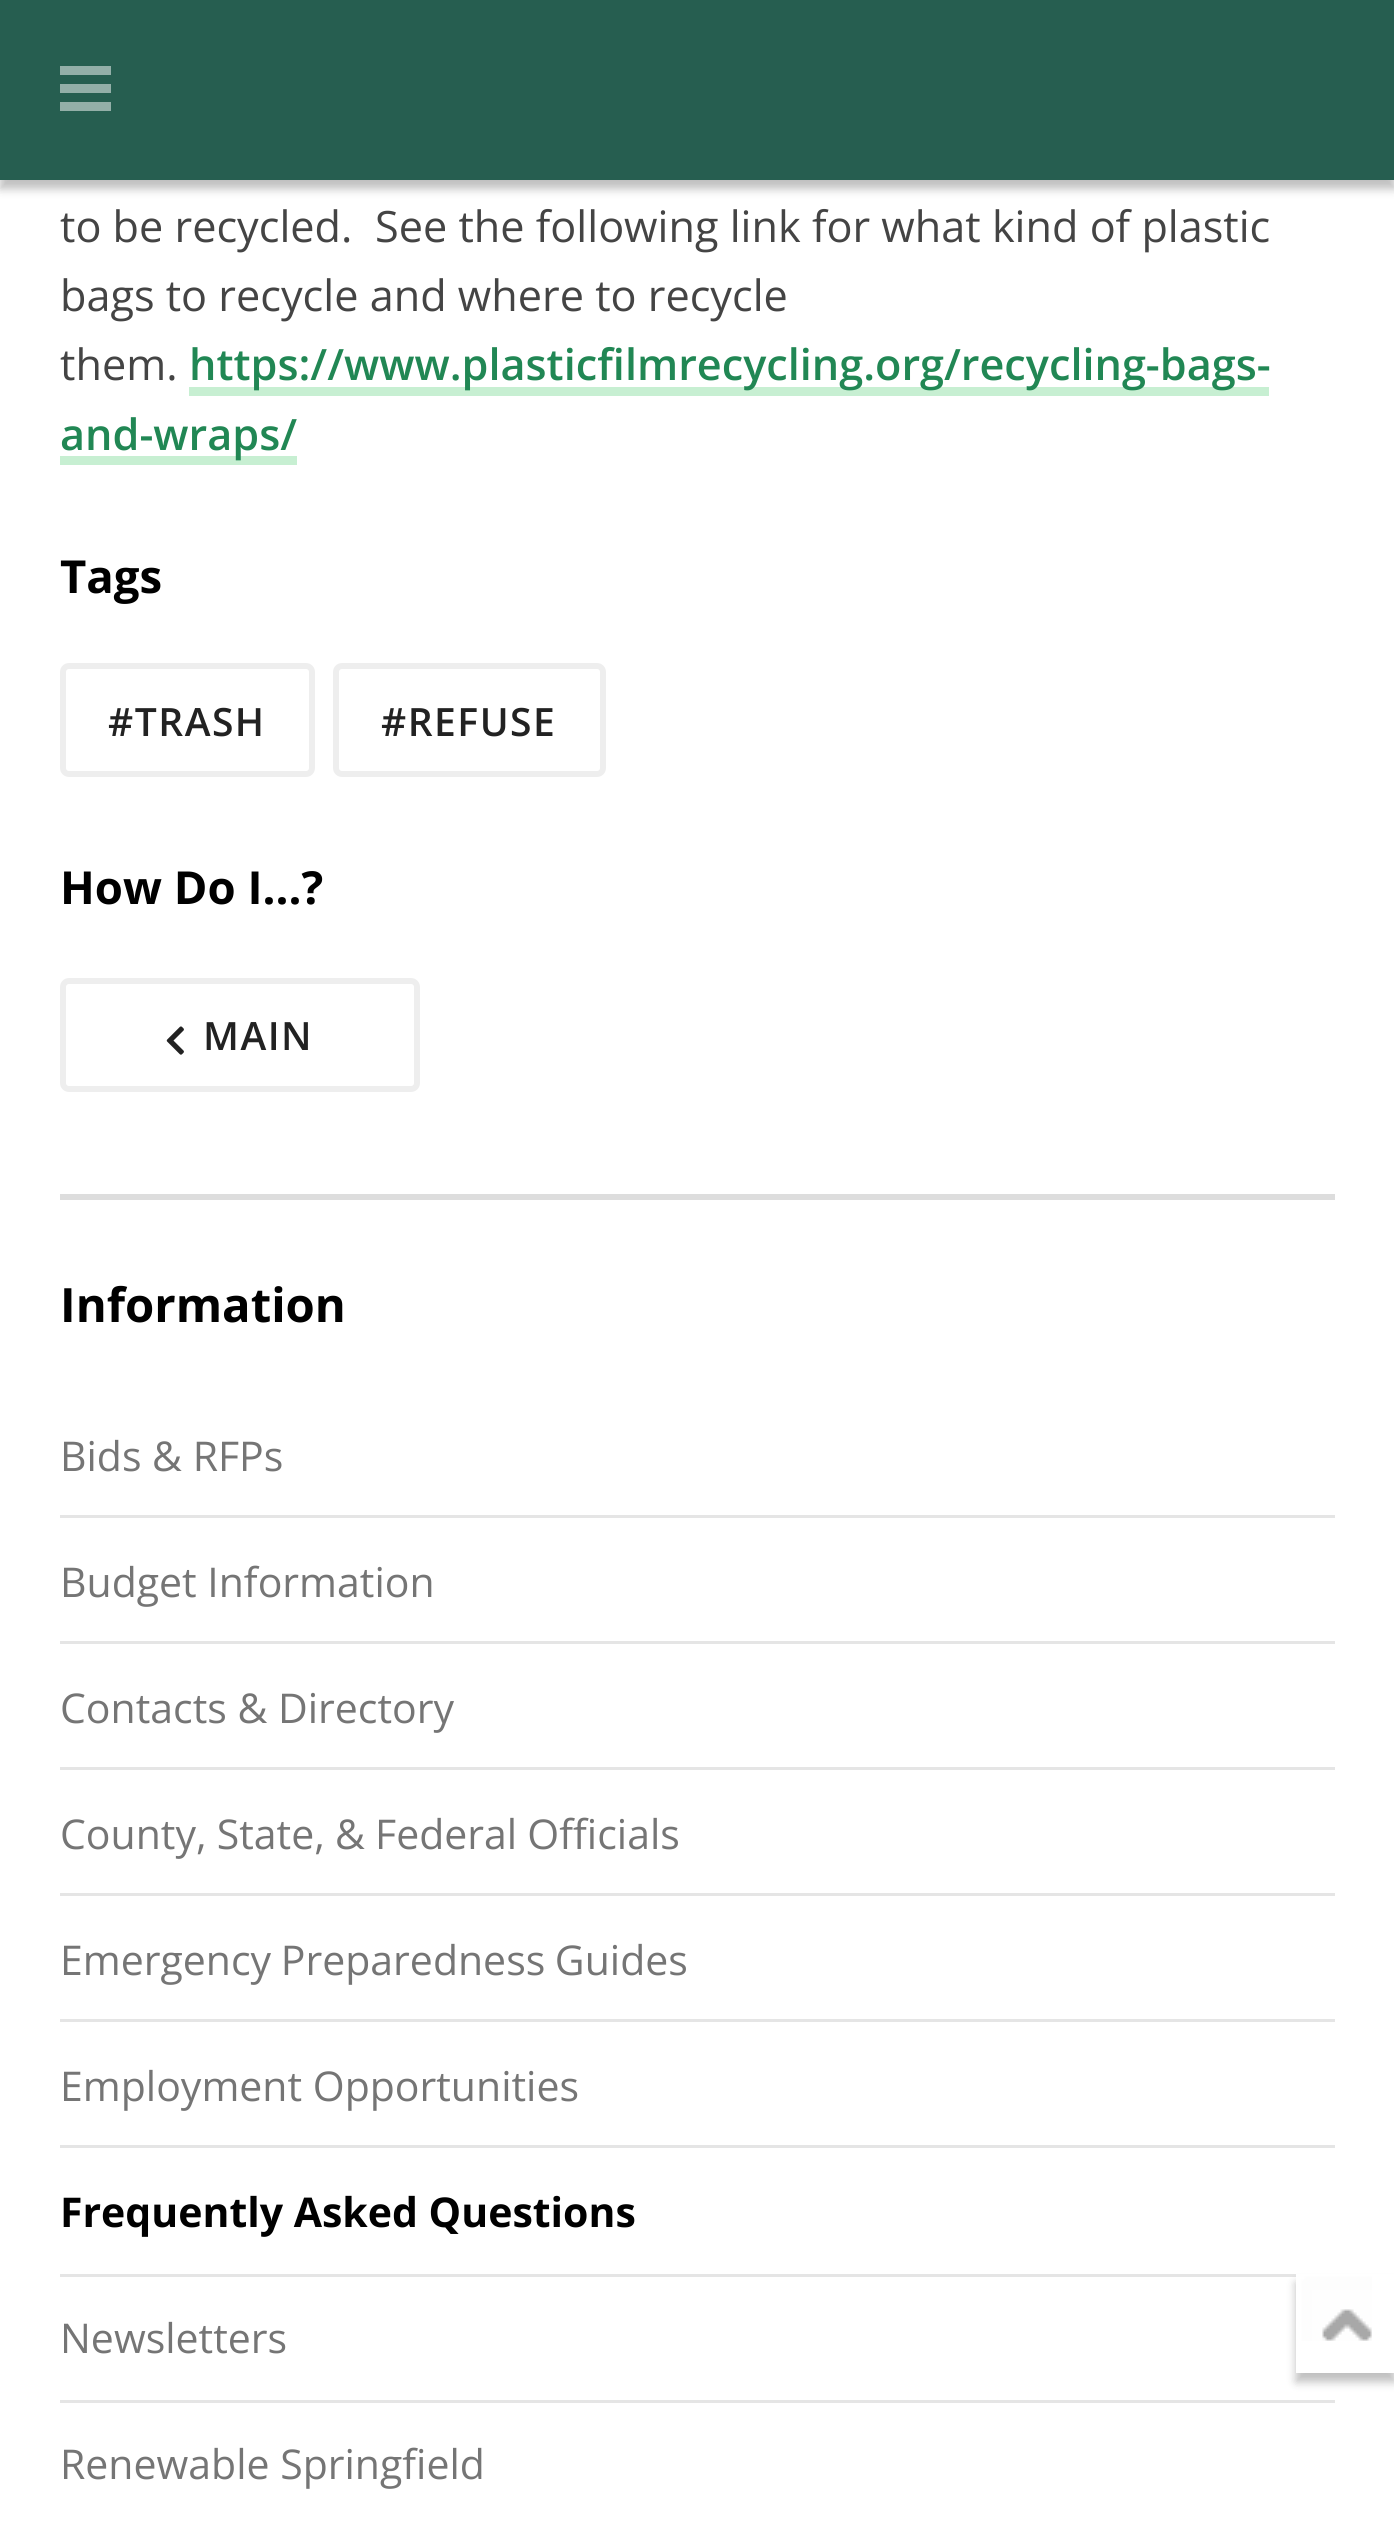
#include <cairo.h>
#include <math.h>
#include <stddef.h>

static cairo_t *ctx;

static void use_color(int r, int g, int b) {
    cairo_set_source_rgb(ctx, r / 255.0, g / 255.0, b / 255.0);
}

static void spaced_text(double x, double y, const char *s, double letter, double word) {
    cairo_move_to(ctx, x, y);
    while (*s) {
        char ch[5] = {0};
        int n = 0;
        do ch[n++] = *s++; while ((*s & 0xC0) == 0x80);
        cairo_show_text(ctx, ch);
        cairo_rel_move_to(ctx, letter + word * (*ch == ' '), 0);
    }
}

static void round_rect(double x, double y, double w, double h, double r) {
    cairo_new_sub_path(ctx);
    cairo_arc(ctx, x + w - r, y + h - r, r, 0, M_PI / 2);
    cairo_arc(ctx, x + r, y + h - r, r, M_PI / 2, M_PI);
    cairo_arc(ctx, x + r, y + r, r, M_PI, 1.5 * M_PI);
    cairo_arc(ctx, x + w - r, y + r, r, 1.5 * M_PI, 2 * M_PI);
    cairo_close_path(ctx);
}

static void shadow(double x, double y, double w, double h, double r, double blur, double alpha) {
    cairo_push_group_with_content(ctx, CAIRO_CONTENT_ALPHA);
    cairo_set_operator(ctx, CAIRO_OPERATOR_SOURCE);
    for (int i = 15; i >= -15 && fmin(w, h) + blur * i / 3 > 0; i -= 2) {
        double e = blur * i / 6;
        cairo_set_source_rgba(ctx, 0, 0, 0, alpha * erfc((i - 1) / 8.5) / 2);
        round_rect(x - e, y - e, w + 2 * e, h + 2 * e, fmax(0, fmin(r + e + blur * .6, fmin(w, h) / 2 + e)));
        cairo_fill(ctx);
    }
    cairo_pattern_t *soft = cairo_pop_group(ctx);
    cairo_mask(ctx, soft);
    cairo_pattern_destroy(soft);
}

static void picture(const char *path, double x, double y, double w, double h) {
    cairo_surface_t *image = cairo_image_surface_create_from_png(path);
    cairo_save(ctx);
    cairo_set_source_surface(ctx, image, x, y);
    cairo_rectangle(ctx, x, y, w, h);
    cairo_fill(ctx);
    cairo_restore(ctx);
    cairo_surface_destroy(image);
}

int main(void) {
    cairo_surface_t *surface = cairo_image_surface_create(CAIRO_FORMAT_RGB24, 1394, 2521);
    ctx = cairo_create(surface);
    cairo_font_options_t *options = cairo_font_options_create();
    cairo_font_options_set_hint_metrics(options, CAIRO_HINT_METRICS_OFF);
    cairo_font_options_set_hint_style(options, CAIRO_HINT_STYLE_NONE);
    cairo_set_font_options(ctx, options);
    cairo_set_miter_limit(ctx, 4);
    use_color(255, 255, 255);
    cairo_paint(ctx);
    use_color(0, 0, 0);
    shadow(0, 9, 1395, 180, 0, 4.5, 0.25);
    use_color(38, 94, 80);
    cairo_rectangle(ctx, 0, 0, 1394, 180);
    cairo_fill(ctx);
    use_color(147, 175, 168);
    cairo_rectangle(ctx, 60, 84, 51, 9);
    cairo_fill(ctx);
    cairo_rectangle(ctx, 60, 66, 51, 9);
    cairo_fill(ctx);
    cairo_rectangle(ctx, 60, 102, 51, 9);
    cairo_fill(ctx);
    cairo_select_font_face(ctx, "Open Sans", CAIRO_FONT_SLANT_NORMAL, CAIRO_FONT_WEIGHT_NORMAL);
    cairo_set_font_size(ctx, 43.2);
    use_color(68, 68, 68);
    cairo_move_to(ctx, 60, 242);
    cairo_show_text(ctx, "to be recycled.");
    cairo_move_to(ctx, 375, 242);
    cairo_show_text(ctx, "See the following link for what kind of plastic");
    cairo_move_to(ctx, 60, 311);
    cairo_show_text(ctx, "bags to recycle and where to recycle");
    cairo_move_to(ctx, 60, 380);
    cairo_show_text(ctx, "them.");
    use_color(199, 239, 210);
    cairo_rectangle(ctx, 189, 387, 1080, 9);
    cairo_fill(ctx);
    cairo_select_font_face(ctx, "Open Sans SemiBold", CAIRO_FONT_SLANT_NORMAL, CAIRO_FONT_WEIGHT_NORMAL);
    use_color(33, 135, 84);
    cairo_move_to(ctx, 189, 380);
    cairo_show_text(ctx, "https://www.plasticfilmrecycling.org/recycling-bags-");
    use_color(199, 239, 210);
    cairo_rectangle(ctx, 60, 456, 237, 9);
    cairo_fill(ctx);
    use_color(33, 135, 84);
    cairo_move_to(ctx, 60, 450);
    cairo_show_text(ctx, "and-wraps/");
    cairo_select_font_face(ctx, "Open Sans", CAIRO_FONT_SLANT_NORMAL, CAIRO_FONT_WEIGHT_BOLD);
    cairo_set_font_size(ctx, 45.5);
    use_color(0, 0, 0);
    cairo_move_to(ctx, 60, 593);
    cairo_show_text(ctx, "Tags");
    round_rect(63, 666, 249, 108, 6);
    use_color(238, 238, 238);
    cairo_set_line_width(ctx, 6);
    cairo_stroke(ctx);
    cairo_select_font_face(ctx, "Open Sans SemiBold", CAIRO_FONT_SLANT_NORMAL, CAIRO_FONT_WEIGHT_NORMAL);
    cairo_set_font_size(ctx, 39);
    use_color(34, 34, 34);
    spaced_text(108, 736, "#TRASH", 1.5, 0);
    round_rect(336, 666, 267, 108, 6);
    use_color(238, 238, 238);
    cairo_stroke(ctx);
    use_color(34, 34, 34);
    spaced_text(381, 736, "#REFUSE", 1.5, 0);
    cairo_select_font_face(ctx, "Open Sans", CAIRO_FONT_SLANT_NORMAL, CAIRO_FONT_WEIGHT_BOLD);
    cairo_set_font_size(ctx, 45.5);
    use_color(0, 0, 0);
    cairo_move_to(ctx, 60, 904);
    cairo_show_text(ctx, "How Do I...?");
    round_rect(63, 981, 354, 108, 6);
    use_color(238, 238, 238);
    cairo_stroke(ctx);
    picture("img1.png", 166, 1026, 18, 29);
    cairo_select_font_face(ctx, "Open Sans SemiBold", CAIRO_FONT_SLANT_NORMAL, CAIRO_FONT_WEIGHT_NORMAL);
    cairo_set_font_size(ctx, 39);
    use_color(34, 34, 34);
    spaced_text(203, 1050, "MAIN", 1.5, 0);
    use_color(221, 221, 221);
    cairo_rectangle(ctx, 60, 1194, 1275, 6);
    cairo_fill(ctx);
    cairo_select_font_face(ctx, "Open Sans", CAIRO_FONT_SLANT_NORMAL, CAIRO_FONT_WEIGHT_BOLD);
    cairo_set_font_size(ctx, 47.25);
    use_color(0, 0, 0);
    cairo_move_to(ctx, 60, 1322);
    cairo_show_text(ctx, "Information");
    cairo_select_font_face(ctx, "Open Sans", CAIRO_FONT_SLANT_NORMAL, CAIRO_FONT_WEIGHT_NORMAL);
    cairo_set_font_size(ctx, 41);
    use_color(117, 117, 117);
    cairo_move_to(ctx, 60, 1471);
    cairo_show_text(ctx, "Bids & RFPs");
    use_color(229, 229, 229);
    cairo_rectangle(ctx, 60, 1515, 1275, 3);
    cairo_fill(ctx);
    use_color(117, 117, 117);
    cairo_move_to(ctx, 60, 1597);
    cairo_show_text(ctx, "Budget Information");
    use_color(229, 229, 229);
    cairo_rectangle(ctx, 60, 1641, 1275, 3);
    cairo_fill(ctx);
    use_color(117, 117, 117);
    cairo_move_to(ctx, 60, 1723);
    cairo_show_text(ctx, "Contacts & Directory");
    use_color(229, 229, 229);
    cairo_rectangle(ctx, 60, 1767, 1275, 3);
    cairo_fill(ctx);
    use_color(117, 117, 117);
    spaced_text(60, 1849, "County, State, & Federal Officials", 0, -0.5);
    use_color(229, 229, 229);
    cairo_rectangle(ctx, 60, 1893, 1275, 3);
    cairo_fill(ctx);
    use_color(117, 117, 117);
    spaced_text(60, 1975, "Emergency Preparedness Guides", 0, -1);
    use_color(229, 229, 229);
    cairo_rectangle(ctx, 60, 2019, 1275, 3);
    cairo_fill(ctx);
    use_color(117, 117, 117);
    cairo_move_to(ctx, 60, 2101);
    cairo_show_text(ctx, "Employment Opportunities");
    use_color(229, 229, 229);
    cairo_rectangle(ctx, 60, 2145, 1275, 3);
    cairo_fill(ctx);
    cairo_select_font_face(ctx, "Open Sans", CAIRO_FONT_SLANT_NORMAL, CAIRO_FONT_WEIGHT_BOLD);
    use_color(0, 0, 0);
    cairo_move_to(ctx, 60, 2227);
    cairo_show_text(ctx, "Frequently Asked Questions");
    use_color(229, 229, 229);
    cairo_rectangle(ctx, 60, 2274, 1236, 3);
    cairo_fill(ctx);
    cairo_select_font_face(ctx, "Open Sans", CAIRO_FONT_SLANT_NORMAL, CAIRO_FONT_WEIGHT_NORMAL);
    use_color(117, 117, 117);
    cairo_move_to(ctx, 60, 2353);
    cairo_show_text(ctx, "Newsletters");
    use_color(229, 229, 229);
    cairo_rectangle(ctx, 60, 2400, 1275, 3);
    cairo_fill(ctx);
    use_color(117, 117, 117);
    cairo_move_to(ctx, 60, 2479);
    cairo_show_text(ctx, "Renewable Springfield");
    cairo_save(ctx);
    cairo_set_fill_rule(ctx, CAIRO_FILL_RULE_EVEN_ODD);
    cairo_new_path(ctx);
    cairo_move_to(ctx, 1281, 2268);
    cairo_line_to(ctx, 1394, 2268);
    cairo_line_to(ctx, 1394, 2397);
    cairo_line_to(ctx, 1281, 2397);
    cairo_close_path(ctx);
    cairo_move_to(ctx, 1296, 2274);
    cairo_line_to(ctx, 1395, 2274);
    cairo_line_to(ctx, 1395, 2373);
    cairo_line_to(ctx, 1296, 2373);
    cairo_close_path(ctx);
    cairo_clip(ctx);
    use_color(0, 0, 0);
    shadow(1296, 2283, 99, 99, 0, 4.5, 0.25);
    cairo_restore(ctx);
    picture("img2.png", 1296, 2274, 76, 67);
    cairo_surface_write_to_png(surface, "result.png");
    cairo_font_options_destroy(options);
    cairo_destroy(ctx);
    cairo_surface_destroy(surface);
    return 0;
}
